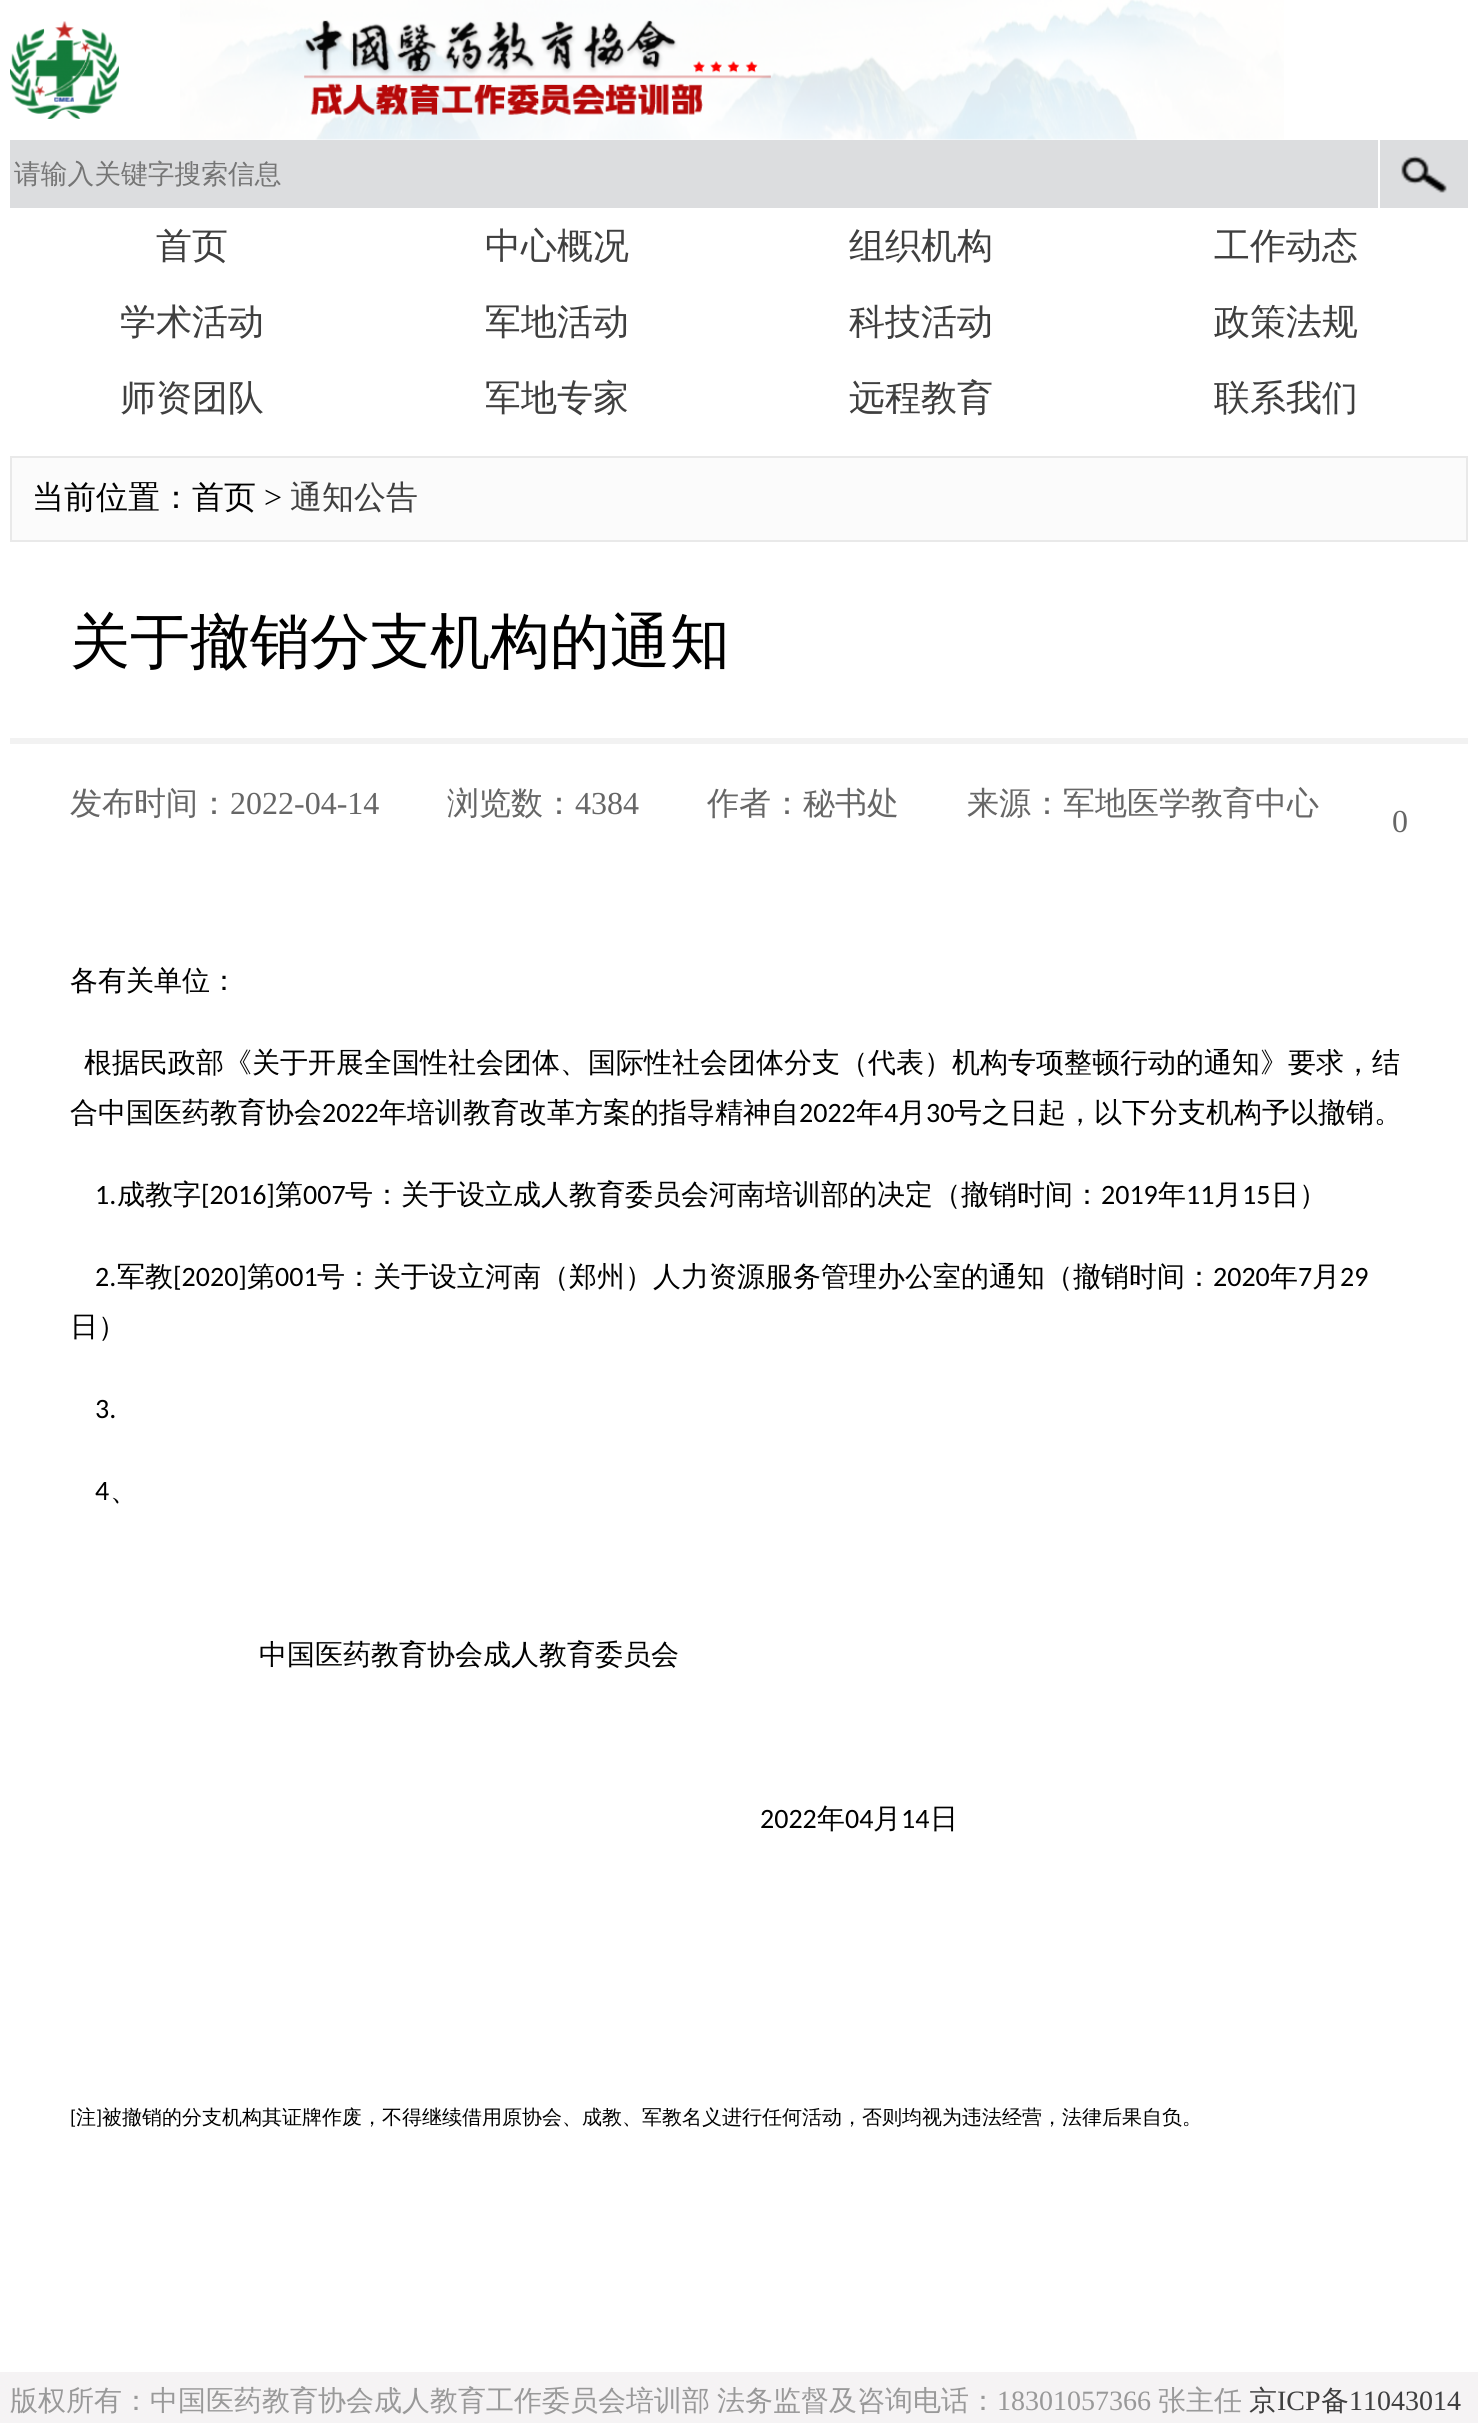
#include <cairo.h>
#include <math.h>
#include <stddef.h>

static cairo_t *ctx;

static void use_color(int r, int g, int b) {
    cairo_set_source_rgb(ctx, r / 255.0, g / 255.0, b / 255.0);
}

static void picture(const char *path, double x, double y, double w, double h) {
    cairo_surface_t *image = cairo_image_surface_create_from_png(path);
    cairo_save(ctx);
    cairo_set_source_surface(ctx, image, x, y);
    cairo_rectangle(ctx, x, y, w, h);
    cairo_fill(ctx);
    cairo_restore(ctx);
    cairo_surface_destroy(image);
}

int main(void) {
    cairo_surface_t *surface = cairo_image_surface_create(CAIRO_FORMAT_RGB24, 1478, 2423);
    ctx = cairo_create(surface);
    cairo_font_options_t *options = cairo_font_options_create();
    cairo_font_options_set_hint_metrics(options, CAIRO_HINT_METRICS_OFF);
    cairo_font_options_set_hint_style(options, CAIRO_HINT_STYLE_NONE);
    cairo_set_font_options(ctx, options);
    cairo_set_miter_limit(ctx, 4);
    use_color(255, 255, 255);
    cairo_paint(ctx);
    picture("img1.png", 180, 0, 1104, 140);
    picture("img2.png", 10, 21, 109, 98);
    picture("img3.png", 303, 20, 468, 95);
    use_color(220, 221, 223);
    cairo_rectangle(ctx, 10, 140, 1458, 68);
    cairo_fill(ctx);
    cairo_select_font_face(ctx, "WenQuanYi Zen Hei Medium", CAIRO_FONT_SLANT_NORMAL, CAIRO_FONT_WEIGHT_NORMAL);
    cairo_set_font_size(ctx, 26.75);
    use_color(117, 117, 117);
    cairo_move_to(ctx, 14, 183);
    cairo_show_text(ctx, "请输入关键字搜索信息");
    picture("img4.png", 1401, 156, 46, 37);
    use_color(255, 255, 255);
    cairo_rectangle(ctx, 1378, 140, 2, 68);
    cairo_fill(ctx);
    cairo_set_font_size(ctx, 36);
    use_color(63, 63, 63);
    cairo_move_to(ctx, 156, 258);
    cairo_show_text(ctx, "首页");
    cairo_move_to(ctx, 485, 258);
    cairo_show_text(ctx, "中心概况");
    cairo_move_to(ctx, 849, 258);
    cairo_show_text(ctx, "组织机构");
    cairo_move_to(ctx, 1214, 258);
    cairo_show_text(ctx, "工作动态");
    cairo_move_to(ctx, 120, 334);
    cairo_show_text(ctx, "学术活动");
    cairo_move_to(ctx, 485, 334);
    cairo_show_text(ctx, "军地活动");
    cairo_move_to(ctx, 849, 334);
    cairo_show_text(ctx, "科技活动");
    cairo_move_to(ctx, 1214, 334);
    cairo_show_text(ctx, "政策法规");
    cairo_move_to(ctx, 120, 410);
    cairo_show_text(ctx, "师资团队");
    cairo_move_to(ctx, 485, 410);
    cairo_show_text(ctx, "军地专家");
    cairo_move_to(ctx, 849, 410);
    cairo_show_text(ctx, "远程教育");
    cairo_move_to(ctx, 1214, 410);
    cairo_show_text(ctx, "联系我们");
    use_color(251, 251, 251);
    cairo_rectangle(ctx, 11, 457, 1456, 84);
    cairo_fill_preserve(ctx);
    use_color(233, 233, 233);
    cairo_stroke(ctx);
    cairo_set_font_size(ctx, 32);
    use_color(0, 0, 0);
    cairo_move_to(ctx, 32, 508);
    cairo_show_text(ctx, "当前位置：首页");
    cairo_select_font_face(ctx, "Liberation Serif", CAIRO_FONT_SLANT_NORMAL, CAIRO_FONT_WEIGHT_NORMAL);
    cairo_move_to(ctx, 264, 508);
    cairo_show_text(ctx, ">");
    cairo_select_font_face(ctx, "WenQuanYi Zen Hei Medium", CAIRO_FONT_SLANT_NORMAL, CAIRO_FONT_WEIGHT_NORMAL);
    use_color(63, 63, 63);
    cairo_move_to(ctx, 290, 508);
    cairo_show_text(ctx, "通知公告");
    use_color(242, 242, 242);
    cairo_rectangle(ctx, 10, 738, 1458, 6);
    cairo_fill(ctx);
    cairo_set_font_size(ctx, 60);
    use_color(0, 0, 0);
    cairo_move_to(ctx, 70, 662);
    cairo_show_text(ctx, "关于撤销分支机构的通知");
    cairo_set_font_size(ctx, 32);
    use_color(102, 102, 102);
    cairo_move_to(ctx, 70, 814);
    cairo_show_text(ctx, "发布时间：");
    cairo_select_font_face(ctx, "Liberation Serif", CAIRO_FONT_SLANT_NORMAL, CAIRO_FONT_WEIGHT_NORMAL);
    cairo_move_to(ctx, 230, 814);
    cairo_show_text(ctx, "2022-04-14");
    cairo_select_font_face(ctx, "WenQuanYi Zen Hei Medium", CAIRO_FONT_SLANT_NORMAL, CAIRO_FONT_WEIGHT_NORMAL);
    cairo_move_to(ctx, 447, 814);
    cairo_show_text(ctx, "浏览数：");
    cairo_select_font_face(ctx, "Liberation Serif", CAIRO_FONT_SLANT_NORMAL, CAIRO_FONT_WEIGHT_NORMAL);
    cairo_move_to(ctx, 575, 814);
    cairo_show_text(ctx, "4384");
    cairo_select_font_face(ctx, "WenQuanYi Zen Hei Medium", CAIRO_FONT_SLANT_NORMAL, CAIRO_FONT_WEIGHT_NORMAL);
    cairo_move_to(ctx, 707, 814);
    cairo_show_text(ctx, "作者：秘书处");
    cairo_move_to(ctx, 967, 814);
    cairo_show_text(ctx, "来源：军地医学教育中心");
    cairo_select_font_face(ctx, "Liberation Serif", CAIRO_FONT_SLANT_NORMAL, CAIRO_FONT_WEIGHT_NORMAL);
    cairo_move_to(ctx, 1392, 832);
    cairo_show_text(ctx, "0");
    cairo_select_font_face(ctx, "WenQuanYi Zen Hei Medium", CAIRO_FONT_SLANT_NORMAL, CAIRO_FONT_WEIGHT_NORMAL);
    cairo_set_font_size(ctx, 28);
    use_color(0, 0, 0);
    cairo_move_to(ctx, 70, 990);
    cairo_show_text(ctx, "各有关单位：");
    cairo_move_to(ctx, 84, 1072);
    cairo_show_text(ctx, "根据民政部《关于开展全国性社会团体、国际性社会团体分支（代表）机构专项整顿行动的通知》要求，结");
    cairo_move_to(ctx, 70, 1122);
    cairo_show_text(ctx, "合中国医药教育协会");
    cairo_select_font_face(ctx, "Carlito", CAIRO_FONT_SLANT_NORMAL, CAIRO_FONT_WEIGHT_NORMAL);
    cairo_move_to(ctx, 322, 1122);
    cairo_show_text(ctx, "2022");
    cairo_select_font_face(ctx, "WenQuanYi Zen Hei Medium", CAIRO_FONT_SLANT_NORMAL, CAIRO_FONT_WEIGHT_NORMAL);
    cairo_move_to(ctx, 379, 1122);
    cairo_show_text(ctx, "年培训教育改革方案的指导精神自");
    cairo_select_font_face(ctx, "Carlito", CAIRO_FONT_SLANT_NORMAL, CAIRO_FONT_WEIGHT_NORMAL);
    cairo_move_to(ctx, 799, 1122);
    cairo_show_text(ctx, "2022");
    cairo_select_font_face(ctx, "WenQuanYi Zen Hei Medium", CAIRO_FONT_SLANT_NORMAL, CAIRO_FONT_WEIGHT_NORMAL);
    cairo_move_to(ctx, 856, 1122);
    cairo_show_text(ctx, "年");
    cairo_select_font_face(ctx, "Carlito", CAIRO_FONT_SLANT_NORMAL, CAIRO_FONT_WEIGHT_NORMAL);
    cairo_move_to(ctx, 884, 1122);
    cairo_show_text(ctx, "4");
    cairo_select_font_face(ctx, "WenQuanYi Zen Hei Medium", CAIRO_FONT_SLANT_NORMAL, CAIRO_FONT_WEIGHT_NORMAL);
    cairo_move_to(ctx, 898, 1122);
    cairo_show_text(ctx, "月");
    cairo_select_font_face(ctx, "Carlito", CAIRO_FONT_SLANT_NORMAL, CAIRO_FONT_WEIGHT_NORMAL);
    cairo_move_to(ctx, 926, 1122);
    cairo_show_text(ctx, "30");
    cairo_select_font_face(ctx, "WenQuanYi Zen Hei Medium", CAIRO_FONT_SLANT_NORMAL, CAIRO_FONT_WEIGHT_NORMAL);
    cairo_move_to(ctx, 954, 1122);
    cairo_show_text(ctx, "号之日起，以下分支机构予以撤销。");
    cairo_select_font_face(ctx, "Carlito", CAIRO_FONT_SLANT_NORMAL, CAIRO_FONT_WEIGHT_NORMAL);
    cairo_move_to(ctx, 95, 1204);
    cairo_show_text(ctx, "1.");
    cairo_select_font_face(ctx, "WenQuanYi Zen Hei Medium", CAIRO_FONT_SLANT_NORMAL, CAIRO_FONT_WEIGHT_NORMAL);
    cairo_move_to(ctx, 117, 1204);
    cairo_show_text(ctx, "成教字");
    cairo_select_font_face(ctx, "Carlito", CAIRO_FONT_SLANT_NORMAL, CAIRO_FONT_WEIGHT_NORMAL);
    cairo_move_to(ctx, 201, 1204);
    cairo_show_text(ctx, "[2016]");
    cairo_select_font_face(ctx, "WenQuanYi Zen Hei Medium", CAIRO_FONT_SLANT_NORMAL, CAIRO_FONT_WEIGHT_NORMAL);
    cairo_move_to(ctx, 275, 1204);
    cairo_show_text(ctx, "第");
    cairo_select_font_face(ctx, "Carlito", CAIRO_FONT_SLANT_NORMAL, CAIRO_FONT_WEIGHT_NORMAL);
    cairo_move_to(ctx, 303, 1204);
    cairo_show_text(ctx, "007");
    cairo_select_font_face(ctx, "WenQuanYi Zen Hei Medium", CAIRO_FONT_SLANT_NORMAL, CAIRO_FONT_WEIGHT_NORMAL);
    cairo_move_to(ctx, 345, 1204);
    cairo_show_text(ctx, "号：关于设立成人教育委员会河南培训部的决定（撤销时间：");
    cairo_select_font_face(ctx, "Carlito", CAIRO_FONT_SLANT_NORMAL, CAIRO_FONT_WEIGHT_NORMAL);
    cairo_move_to(ctx, 1101, 1204);
    cairo_show_text(ctx, "2019");
    cairo_select_font_face(ctx, "WenQuanYi Zen Hei Medium", CAIRO_FONT_SLANT_NORMAL, CAIRO_FONT_WEIGHT_NORMAL);
    cairo_move_to(ctx, 1158, 1204);
    cairo_show_text(ctx, "年");
    cairo_select_font_face(ctx, "Carlito", CAIRO_FONT_SLANT_NORMAL, CAIRO_FONT_WEIGHT_NORMAL);
    cairo_move_to(ctx, 1186, 1204);
    cairo_show_text(ctx, "11");
    cairo_select_font_face(ctx, "WenQuanYi Zen Hei Medium", CAIRO_FONT_SLANT_NORMAL, CAIRO_FONT_WEIGHT_NORMAL);
    cairo_move_to(ctx, 1214, 1204);
    cairo_show_text(ctx, "月");
    cairo_select_font_face(ctx, "Carlito", CAIRO_FONT_SLANT_NORMAL, CAIRO_FONT_WEIGHT_NORMAL);
    cairo_move_to(ctx, 1242, 1204);
    cairo_show_text(ctx, "15");
    cairo_select_font_face(ctx, "WenQuanYi Zen Hei Medium", CAIRO_FONT_SLANT_NORMAL, CAIRO_FONT_WEIGHT_NORMAL);
    cairo_move_to(ctx, 1271, 1204);
    cairo_show_text(ctx, "日）");
    cairo_select_font_face(ctx, "Carlito", CAIRO_FONT_SLANT_NORMAL, CAIRO_FONT_WEIGHT_NORMAL);
    cairo_move_to(ctx, 95, 1286);
    cairo_show_text(ctx, "2.");
    cairo_select_font_face(ctx, "WenQuanYi Zen Hei Medium", CAIRO_FONT_SLANT_NORMAL, CAIRO_FONT_WEIGHT_NORMAL);
    cairo_move_to(ctx, 117, 1286);
    cairo_show_text(ctx, "军教");
    cairo_select_font_face(ctx, "Carlito", CAIRO_FONT_SLANT_NORMAL, CAIRO_FONT_WEIGHT_NORMAL);
    cairo_move_to(ctx, 173, 1286);
    cairo_show_text(ctx, "[2020]");
    cairo_select_font_face(ctx, "WenQuanYi Zen Hei Medium", CAIRO_FONT_SLANT_NORMAL, CAIRO_FONT_WEIGHT_NORMAL);
    cairo_move_to(ctx, 247, 1286);
    cairo_show_text(ctx, "第");
    cairo_select_font_face(ctx, "Carlito", CAIRO_FONT_SLANT_NORMAL, CAIRO_FONT_WEIGHT_NORMAL);
    cairo_move_to(ctx, 275, 1286);
    cairo_show_text(ctx, "001");
    cairo_select_font_face(ctx, "WenQuanYi Zen Hei Medium", CAIRO_FONT_SLANT_NORMAL, CAIRO_FONT_WEIGHT_NORMAL);
    cairo_move_to(ctx, 317, 1286);
    cairo_show_text(ctx, "号：关于设立河南（郑州）人力资源服务管理办公室的通知（撤销时间：");
    cairo_select_font_face(ctx, "Carlito", CAIRO_FONT_SLANT_NORMAL, CAIRO_FONT_WEIGHT_NORMAL);
    cairo_move_to(ctx, 1213, 1286);
    cairo_show_text(ctx, "2020");
    cairo_select_font_face(ctx, "WenQuanYi Zen Hei Medium", CAIRO_FONT_SLANT_NORMAL, CAIRO_FONT_WEIGHT_NORMAL);
    cairo_move_to(ctx, 1270, 1286);
    cairo_show_text(ctx, "年");
    cairo_select_font_face(ctx, "Carlito", CAIRO_FONT_SLANT_NORMAL, CAIRO_FONT_WEIGHT_NORMAL);
    cairo_move_to(ctx, 1298, 1286);
    cairo_show_text(ctx, "7");
    cairo_select_font_face(ctx, "WenQuanYi Zen Hei Medium", CAIRO_FONT_SLANT_NORMAL, CAIRO_FONT_WEIGHT_NORMAL);
    cairo_move_to(ctx, 1312, 1286);
    cairo_show_text(ctx, "月");
    cairo_select_font_face(ctx, "Carlito", CAIRO_FONT_SLANT_NORMAL, CAIRO_FONT_WEIGHT_NORMAL);
    cairo_move_to(ctx, 1340, 1286);
    cairo_show_text(ctx, "29");
    cairo_select_font_face(ctx, "WenQuanYi Zen Hei Medium", CAIRO_FONT_SLANT_NORMAL, CAIRO_FONT_WEIGHT_NORMAL);
    cairo_move_to(ctx, 70, 1336);
    cairo_show_text(ctx, "日）");
    cairo_select_font_face(ctx, "Carlito", CAIRO_FONT_SLANT_NORMAL, CAIRO_FONT_WEIGHT_NORMAL);
    cairo_move_to(ctx, 95, 1418);
    cairo_show_text(ctx, "3.");
    cairo_move_to(ctx, 95, 1500);
    cairo_show_text(ctx, "4");
    cairo_select_font_face(ctx, "WenQuanYi Zen Hei Medium", CAIRO_FONT_SLANT_NORMAL, CAIRO_FONT_WEIGHT_NORMAL);
    cairo_move_to(ctx, 110, 1500);
    cairo_show_text(ctx, "、");
    cairo_move_to(ctx, 259, 1664);
    cairo_show_text(ctx, "中国医药教育协会成人教育委员会");
    cairo_select_font_face(ctx, "Carlito", CAIRO_FONT_SLANT_NORMAL, CAIRO_FONT_WEIGHT_NORMAL);
    cairo_move_to(ctx, 760, 1828);
    cairo_show_text(ctx, "2022");
    cairo_select_font_face(ctx, "WenQuanYi Zen Hei Medium", CAIRO_FONT_SLANT_NORMAL, CAIRO_FONT_WEIGHT_NORMAL);
    cairo_move_to(ctx, 817, 1828);
    cairo_show_text(ctx, "年");
    cairo_select_font_face(ctx, "Carlito", CAIRO_FONT_SLANT_NORMAL, CAIRO_FONT_WEIGHT_NORMAL);
    cairo_move_to(ctx, 845, 1828);
    cairo_show_text(ctx, "04");
    cairo_select_font_face(ctx, "WenQuanYi Zen Hei Medium", CAIRO_FONT_SLANT_NORMAL, CAIRO_FONT_WEIGHT_NORMAL);
    cairo_move_to(ctx, 873, 1828);
    cairo_show_text(ctx, "月");
    cairo_select_font_face(ctx, "Carlito", CAIRO_FONT_SLANT_NORMAL, CAIRO_FONT_WEIGHT_NORMAL);
    cairo_move_to(ctx, 901, 1828);
    cairo_show_text(ctx, "14");
    cairo_select_font_face(ctx, "WenQuanYi Zen Hei Medium", CAIRO_FONT_SLANT_NORMAL, CAIRO_FONT_WEIGHT_NORMAL);
    cairo_move_to(ctx, 930, 1828);
    cairo_show_text(ctx, "日");
    cairo_select_font_face(ctx, "Carlito", CAIRO_FONT_SLANT_NORMAL, CAIRO_FONT_WEIGHT_NORMAL);
    cairo_set_font_size(ctx, 20);
    cairo_move_to(ctx, 70, 2124);
    cairo_show_text(ctx, "[");
    cairo_select_font_face(ctx, "WenQuanYi Zen Hei Medium", CAIRO_FONT_SLANT_NORMAL, CAIRO_FONT_WEIGHT_NORMAL);
    cairo_move_to(ctx, 76, 2124);
    cairo_show_text(ctx, "注 被撤销的分支机构其证牌作废，不得继续借用原协会、成教、军教名义进行任何活动，否则均视为违法经营，法律后果自负。");
    cairo_select_font_face(ctx, "Carlito", CAIRO_FONT_SLANT_NORMAL, CAIRO_FONT_WEIGHT_NORMAL);
    cairo_move_to(ctx, 96, 2124);
    cairo_show_text(ctx, "]");
    use_color(245, 243, 244);
    cairo_rectangle(ctx, 0, 2372, 1478, 51);
    cairo_fill(ctx);
    cairo_select_font_face(ctx, "WenQuanYi Zen Hei Medium", CAIRO_FONT_SLANT_NORMAL, CAIRO_FONT_WEIGHT_NORMAL);
    cairo_set_font_size(ctx, 28);
    use_color(153, 153, 153);
    cairo_move_to(ctx, 10, 2410);
    cairo_show_text(ctx, "版权所有：中国医药教育协会成人教育工作委员会培训部");
    cairo_move_to(ctx, 717, 2410);
    cairo_show_text(ctx, "法务监督及咨询电话：");
    cairo_select_font_face(ctx, "Liberation Serif", CAIRO_FONT_SLANT_NORMAL, CAIRO_FONT_WEIGHT_NORMAL);
    cairo_move_to(ctx, 997, 2410);
    cairo_show_text(ctx, "18301057366");
    cairo_select_font_face(ctx, "WenQuanYi Zen Hei Medium", CAIRO_FONT_SLANT_NORMAL, CAIRO_FONT_WEIGHT_NORMAL);
    cairo_move_to(ctx, 1158, 2410);
    cairo_show_text(ctx, "张主任");
    use_color(63, 63, 63);
    cairo_move_to(ctx, 1249, 2410);
    cairo_show_text(ctx, "京");
    cairo_select_font_face(ctx, "Liberation Serif", CAIRO_FONT_SLANT_NORMAL, CAIRO_FONT_WEIGHT_NORMAL);
    cairo_move_to(ctx, 1277, 2410);
    cairo_show_text(ctx, "ICP");
    cairo_select_font_face(ctx, "WenQuanYi Zen Hei Medium", CAIRO_FONT_SLANT_NORMAL, CAIRO_FONT_WEIGHT_NORMAL);
    cairo_move_to(ctx, 1321, 2410);
    cairo_show_text(ctx, "备");
    cairo_select_font_face(ctx, "Liberation Serif", CAIRO_FONT_SLANT_NORMAL, CAIRO_FONT_WEIGHT_NORMAL);
    cairo_move_to(ctx, 1349, 2410);
    cairo_show_text(ctx, "11043014");
    cairo_surface_write_to_png(surface, "result.png");
    cairo_font_options_destroy(options);
    cairo_destroy(ctx);
    cairo_surface_destroy(surface);
    return 0;
}
